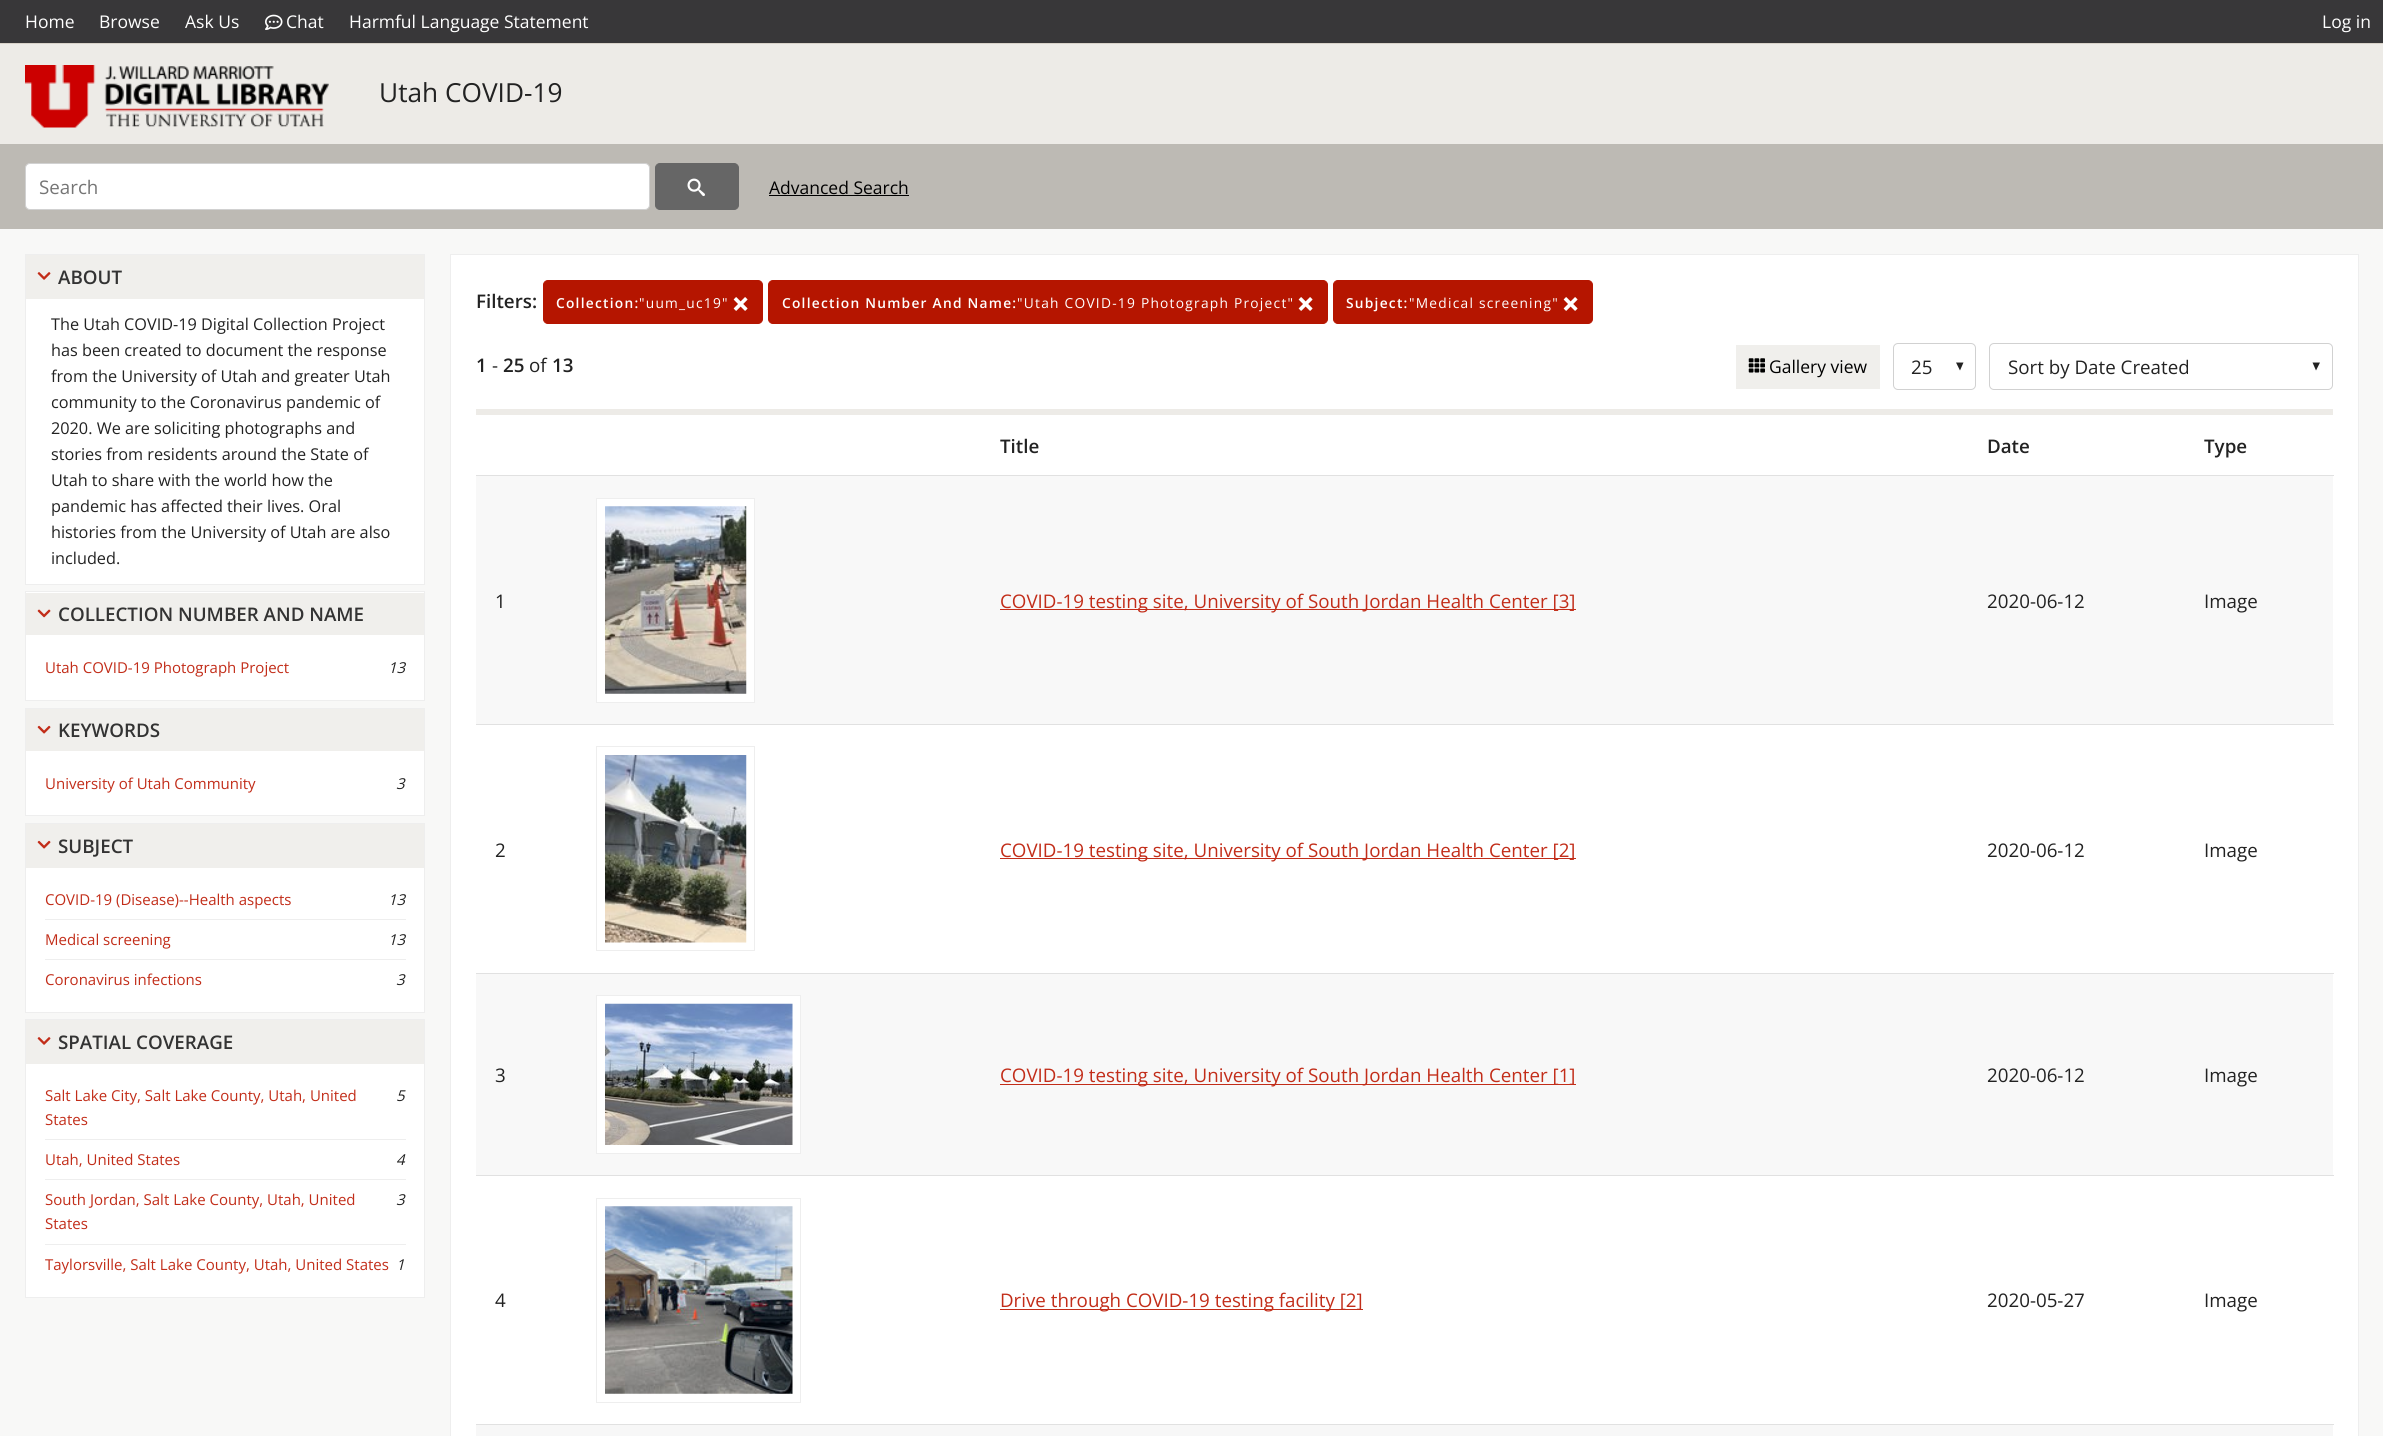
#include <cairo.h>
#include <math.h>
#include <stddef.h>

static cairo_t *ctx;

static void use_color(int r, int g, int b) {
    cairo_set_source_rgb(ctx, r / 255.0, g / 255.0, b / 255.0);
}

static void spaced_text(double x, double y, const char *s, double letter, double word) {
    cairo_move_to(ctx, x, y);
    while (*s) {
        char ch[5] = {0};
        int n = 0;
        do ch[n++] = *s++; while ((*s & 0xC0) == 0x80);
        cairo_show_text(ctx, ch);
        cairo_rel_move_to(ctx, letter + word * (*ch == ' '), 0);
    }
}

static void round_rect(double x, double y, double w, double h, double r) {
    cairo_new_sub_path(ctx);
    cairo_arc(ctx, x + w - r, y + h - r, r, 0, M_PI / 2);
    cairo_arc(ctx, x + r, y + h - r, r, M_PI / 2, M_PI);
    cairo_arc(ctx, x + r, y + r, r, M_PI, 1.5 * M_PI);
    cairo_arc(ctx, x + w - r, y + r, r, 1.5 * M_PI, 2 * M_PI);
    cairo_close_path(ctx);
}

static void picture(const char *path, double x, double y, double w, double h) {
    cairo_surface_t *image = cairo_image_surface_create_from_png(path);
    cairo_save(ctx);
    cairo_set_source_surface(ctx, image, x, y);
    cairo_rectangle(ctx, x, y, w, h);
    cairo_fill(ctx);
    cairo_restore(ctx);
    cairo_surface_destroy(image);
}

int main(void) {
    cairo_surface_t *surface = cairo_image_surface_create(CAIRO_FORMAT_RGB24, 2383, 1436);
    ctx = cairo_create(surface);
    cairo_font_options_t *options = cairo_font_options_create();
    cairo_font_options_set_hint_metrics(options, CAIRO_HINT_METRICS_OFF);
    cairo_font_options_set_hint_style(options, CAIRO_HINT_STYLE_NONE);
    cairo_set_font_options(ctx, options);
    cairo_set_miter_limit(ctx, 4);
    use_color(248, 248, 247);
    cairo_paint(ctx);
    use_color(56, 55, 57);
    cairo_rectangle(ctx, 0, 0, 2383, 43);
    cairo_fill(ctx);
    cairo_select_font_face(ctx, "Open Sans", CAIRO_FONT_SLANT_NORMAL, CAIRO_FONT_WEIGHT_NORMAL);
    cairo_set_font_size(ctx, 17.5);
    use_color(255, 255, 255);
    cairo_move_to(ctx, 25, 28);
    cairo_show_text(ctx, "Home");
    cairo_move_to(ctx, 99, 28);
    cairo_show_text(ctx, "Browse");
    cairo_move_to(ctx, 185, 28);
    cairo_show_text(ctx, "Ask Us");
    picture("img1.png", 265, 14, 18, 16);
    cairo_move_to(ctx, 286, 28);
    cairo_show_text(ctx, "Chat");
    cairo_move_to(ctx, 349, 28);
    cairo_show_text(ctx, "Harmful Language Statement");
    cairo_move_to(ctx, 2322, 28);
    cairo_show_text(ctx, "Log in");
    use_color(237, 235, 231);
    cairo_rectangle(ctx, 0, 44, 2383, 100);
    cairo_fill(ctx);
    use_color(216, 210, 201);
    cairo_rectangle(ctx, 0, 43, 2383, 1);
    cairo_fill(ctx);
    picture("img2.png", 25, 65, 304, 63);
    cairo_set_font_size(ctx, 26.25);
    use_color(34, 34, 34);
    cairo_move_to(ctx, 379, 102);
    cairo_show_text(ctx, "Utah COVID-19");
    use_color(189, 186, 180);
    cairo_rectangle(ctx, 0, 144, 2383, 85);
    cairo_fill(ctx);
    use_color(255, 255, 255);
    round_rect(25.5, 163.5, 624, 46, 4.5);
    cairo_fill_preserve(ctx);
    use_color(209, 209, 209);
    cairo_set_line_width(ctx, 1);
    cairo_stroke(ctx);
    cairo_set_font_size(ctx, 18.75);
    use_color(117, 117, 117);
    cairo_move_to(ctx, 39, 194);
    cairo_show_text(ctx, "Search");
    use_color(102, 102, 102);
    round_rect(655.5, 163.5, 83, 46, 4.5);
    cairo_fill_preserve(ctx);
    cairo_stroke(ctx);
    picture("img3.png", 687, 178, 18, 19);
    cairo_set_font_size(ctx, 17.5);
    use_color(0, 0, 0);
    cairo_move_to(ctx, 769, 194);
    cairo_show_text(ctx, "Advanced Search");
    cairo_rectangle(ctx, 769, 195, 140, 1);
    cairo_fill(ctx);
    use_color(255, 255, 255);
    cairo_rectangle(ctx, 26, 299, 398, 285);
    cairo_fill(ctx);
    cairo_rectangle(ctx, 25.5, 254.5, 399, 330);
    use_color(238, 238, 238);
    cairo_stroke(ctx);
    use_color(240, 239, 236);
    cairo_rectangle(ctx, 26, 255, 398, 44);
    cairo_fill(ctx);
    picture("img4.png", 37, 272, 14, 8);
    cairo_select_font_face(ctx, "Open Sans SemiBold", CAIRO_FONT_SLANT_NORMAL, CAIRO_FONT_WEIGHT_NORMAL);
    cairo_set_font_size(ctx, 18.75);
    use_color(51, 51, 51);
    cairo_move_to(ctx, 58, 284);
    cairo_show_text(ctx, "ABOUT");
    cairo_select_font_face(ctx, "Open Sans", CAIRO_FONT_SLANT_NORMAL, CAIRO_FONT_WEIGHT_NORMAL);
    cairo_set_font_size(ctx, 16.25);
    use_color(34, 34, 34);
    cairo_move_to(ctx, 51, 330);
    cairo_show_text(ctx, "The Utah COVID-19 Digital Collection Project");
    cairo_move_to(ctx, 51, 356);
    cairo_show_text(ctx, "has been created to document the response");
    cairo_move_to(ctx, 51, 382);
    cairo_show_text(ctx, "from the University of Utah and greater Utah");
    cairo_move_to(ctx, 51, 408);
    cairo_show_text(ctx, "community to the Coronavirus pandemic of");
    cairo_move_to(ctx, 51, 434);
    cairo_show_text(ctx, "2020. We are soliciting photographs and");
    cairo_move_to(ctx, 51, 460);
    cairo_show_text(ctx, "stories from residents around the State of");
    cairo_move_to(ctx, 51, 486);
    cairo_show_text(ctx, "Utah to share with the world how the");
    cairo_move_to(ctx, 51, 512);
    cairo_show_text(ctx, "pandemic has affected their lives. Oral");
    cairo_move_to(ctx, 51, 538);
    cairo_show_text(ctx, "histories from the University of Utah are also");
    cairo_move_to(ctx, 51, 564);
    cairo_show_text(ctx, "included.");
    use_color(255, 255, 255);
    cairo_rectangle(ctx, 25.5, 591.5, 399, 109);
    cairo_fill_preserve(ctx);
    use_color(238, 238, 238);
    cairo_stroke(ctx);
    use_color(240, 239, 236);
    cairo_rectangle(ctx, 26, 593, 398, 42);
    cairo_fill(ctx);
    picture("img5.png", 37, 609, 14, 9);
    cairo_select_font_face(ctx, "Open Sans SemiBold", CAIRO_FONT_SLANT_NORMAL, CAIRO_FONT_WEIGHT_NORMAL);
    cairo_set_font_size(ctx, 18.75);
    use_color(51, 51, 51);
    cairo_move_to(ctx, 58, 621);
    cairo_show_text(ctx, "COLLECTION NUMBER AND NAME");
    cairo_select_font_face(ctx, "Open Sans", CAIRO_FONT_SLANT_NORMAL, CAIRO_FONT_WEIGHT_NORMAL);
    cairo_set_font_size(ctx, 15);
    use_color(194, 45, 25);
    cairo_move_to(ctx, 45, 673);
    cairo_show_text(ctx, "Utah COVID-19 Photograph Project");
    cairo_select_font_face(ctx, "Open Sans", CAIRO_FONT_SLANT_ITALIC, CAIRO_FONT_WEIGHT_NORMAL);
    use_color(34, 34, 34);
    cairo_move_to(ctx, 388, 673);
    cairo_show_text(ctx, "13");
    use_color(255, 255, 255);
    cairo_rectangle(ctx, 26, 751, 398, 64);
    cairo_fill(ctx);
    cairo_rectangle(ctx, 25.5, 708.5, 399, 107);
    use_color(238, 238, 238);
    cairo_stroke(ctx);
    use_color(240, 239, 236);
    cairo_rectangle(ctx, 26, 709, 398, 42);
    cairo_fill(ctx);
    picture("img6.png", 37, 725, 14, 9);
    cairo_select_font_face(ctx, "Open Sans SemiBold", CAIRO_FONT_SLANT_NORMAL, CAIRO_FONT_WEIGHT_NORMAL);
    cairo_set_font_size(ctx, 18.75);
    use_color(51, 51, 51);
    cairo_move_to(ctx, 58, 737);
    cairo_show_text(ctx, "KEYWORDS");
    cairo_select_font_face(ctx, "Open Sans", CAIRO_FONT_SLANT_NORMAL, CAIRO_FONT_WEIGHT_NORMAL);
    cairo_set_font_size(ctx, 15);
    use_color(194, 45, 25);
    cairo_move_to(ctx, 45, 789);
    cairo_show_text(ctx, "University of Utah Community");
    cairo_select_font_face(ctx, "Open Sans", CAIRO_FONT_SLANT_ITALIC, CAIRO_FONT_WEIGHT_NORMAL);
    use_color(34, 34, 34);
    cairo_move_to(ctx, 396, 789);
    cairo_show_text(ctx, "3");
    use_color(255, 255, 255);
    cairo_rectangle(ctx, 26, 868, 398, 144);
    cairo_fill(ctx);
    cairo_rectangle(ctx, 25.5, 823.5, 399, 189);
    use_color(238, 238, 238);
    cairo_stroke(ctx);
    use_color(240, 239, 236);
    cairo_rectangle(ctx, 26, 824, 398, 44);
    cairo_fill(ctx);
    picture("img6.png", 37, 840, 14, 9);
    cairo_select_font_face(ctx, "Open Sans SemiBold", CAIRO_FONT_SLANT_NORMAL, CAIRO_FONT_WEIGHT_NORMAL);
    cairo_set_font_size(ctx, 18.75);
    use_color(51, 51, 51);
    cairo_move_to(ctx, 58, 853);
    cairo_show_text(ctx, "SUBJECT");
    use_color(238, 238, 238);
    cairo_rectangle(ctx, 45, 919, 361, 1);
    cairo_fill(ctx);
    cairo_select_font_face(ctx, "Open Sans", CAIRO_FONT_SLANT_NORMAL, CAIRO_FONT_WEIGHT_NORMAL);
    cairo_set_font_size(ctx, 15);
    use_color(194, 45, 25);
    cairo_move_to(ctx, 45, 905);
    cairo_show_text(ctx, "COVID-19 (Disease)--Health aspects");
    cairo_select_font_face(ctx, "Open Sans", CAIRO_FONT_SLANT_ITALIC, CAIRO_FONT_WEIGHT_NORMAL);
    use_color(34, 34, 34);
    cairo_move_to(ctx, 388, 905);
    cairo_show_text(ctx, "13");
    use_color(238, 238, 238);
    cairo_rectangle(ctx, 45, 959, 361, 1);
    cairo_fill(ctx);
    cairo_select_font_face(ctx, "Open Sans", CAIRO_FONT_SLANT_NORMAL, CAIRO_FONT_WEIGHT_NORMAL);
    use_color(194, 45, 25);
    cairo_move_to(ctx, 45, 945);
    cairo_show_text(ctx, "Medical screening");
    cairo_select_font_face(ctx, "Open Sans", CAIRO_FONT_SLANT_ITALIC, CAIRO_FONT_WEIGHT_NORMAL);
    use_color(34, 34, 34);
    cairo_move_to(ctx, 388, 945);
    cairo_show_text(ctx, "13");
    cairo_select_font_face(ctx, "Open Sans", CAIRO_FONT_SLANT_NORMAL, CAIRO_FONT_WEIGHT_NORMAL);
    use_color(194, 45, 25);
    cairo_move_to(ctx, 45, 985);
    cairo_show_text(ctx, "Coronavirus infections");
    cairo_select_font_face(ctx, "Open Sans", CAIRO_FONT_SLANT_ITALIC, CAIRO_FONT_WEIGHT_NORMAL);
    use_color(34, 34, 34);
    cairo_move_to(ctx, 396, 985);
    cairo_show_text(ctx, "3");
    use_color(255, 255, 255);
    cairo_rectangle(ctx, 26, 1064, 398, 233);
    cairo_fill(ctx);
    cairo_rectangle(ctx, 25.5, 1019.5, 399, 278);
    use_color(238, 238, 238);
    cairo_stroke(ctx);
    use_color(240, 239, 236);
    cairo_rectangle(ctx, 26, 1020, 398, 44);
    cairo_fill(ctx);
    picture("img4.png", 37, 1037, 14, 8);
    cairo_select_font_face(ctx, "Open Sans SemiBold", CAIRO_FONT_SLANT_NORMAL, CAIRO_FONT_WEIGHT_NORMAL);
    cairo_set_font_size(ctx, 18.75);
    use_color(51, 51, 51);
    cairo_move_to(ctx, 58, 1049);
    cairo_show_text(ctx, "SPATIAL COVERAGE");
    use_color(238, 238, 238);
    cairo_rectangle(ctx, 45, 1139, 361, 1);
    cairo_fill(ctx);
    cairo_select_font_face(ctx, "Open Sans", CAIRO_FONT_SLANT_NORMAL, CAIRO_FONT_WEIGHT_NORMAL);
    cairo_set_font_size(ctx, 15);
    use_color(194, 45, 25);
    cairo_move_to(ctx, 45, 1101);
    cairo_show_text(ctx, "Salt Lake City, Salt Lake County, Utah, United");
    cairo_move_to(ctx, 45, 1125);
    cairo_show_text(ctx, "States");
    cairo_select_font_face(ctx, "Open Sans", CAIRO_FONT_SLANT_ITALIC, CAIRO_FONT_WEIGHT_NORMAL);
    use_color(34, 34, 34);
    cairo_move_to(ctx, 396, 1101);
    cairo_show_text(ctx, "5");
    use_color(238, 238, 238);
    cairo_rectangle(ctx, 45, 1179, 361, 1);
    cairo_fill(ctx);
    cairo_select_font_face(ctx, "Open Sans", CAIRO_FONT_SLANT_NORMAL, CAIRO_FONT_WEIGHT_NORMAL);
    use_color(194, 45, 25);
    cairo_move_to(ctx, 45, 1165);
    cairo_show_text(ctx, "Utah, United States");
    cairo_select_font_face(ctx, "Open Sans", CAIRO_FONT_SLANT_ITALIC, CAIRO_FONT_WEIGHT_NORMAL);
    use_color(34, 34, 34);
    cairo_move_to(ctx, 396, 1165);
    cairo_show_text(ctx, "4");
    use_color(238, 238, 238);
    cairo_rectangle(ctx, 45, 1244, 361, 1);
    cairo_fill(ctx);
    cairo_select_font_face(ctx, "Open Sans", CAIRO_FONT_SLANT_NORMAL, CAIRO_FONT_WEIGHT_NORMAL);
    use_color(194, 45, 25);
    cairo_move_to(ctx, 45, 1205);
    cairo_show_text(ctx, "South Jordan, Salt Lake County, Utah, United");
    cairo_move_to(ctx, 45, 1229);
    cairo_show_text(ctx, "States");
    cairo_select_font_face(ctx, "Open Sans", CAIRO_FONT_SLANT_ITALIC, CAIRO_FONT_WEIGHT_NORMAL);
    use_color(34, 34, 34);
    cairo_move_to(ctx, 396, 1205);
    cairo_show_text(ctx, "3");
    cairo_select_font_face(ctx, "Open Sans", CAIRO_FONT_SLANT_NORMAL, CAIRO_FONT_WEIGHT_NORMAL);
    use_color(194, 45, 25);
    cairo_move_to(ctx, 45, 1270);
    cairo_show_text(ctx, "Taylorsville, Salt Lake County, Utah, United States");
    cairo_select_font_face(ctx, "Open Sans", CAIRO_FONT_SLANT_ITALIC, CAIRO_FONT_WEIGHT_NORMAL);
    use_color(34, 34, 34);
    cairo_move_to(ctx, 396, 1270);
    cairo_show_text(ctx, "1");
    use_color(255, 255, 255);
    cairo_rectangle(ctx, 450.5, 254.5, 1908, 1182);
    cairo_fill_preserve(ctx);
    use_color(238, 238, 238);
    cairo_stroke(ctx);
    cairo_select_font_face(ctx, "Open Sans SemiBold", CAIRO_FONT_SLANT_NORMAL, CAIRO_FONT_WEIGHT_NORMAL);
    cairo_set_font_size(ctx, 18.75);
    use_color(34, 34, 34);
    cairo_move_to(ctx, 476, 308);
    cairo_show_text(ctx, "Filters:");
    use_color(181, 21, 0);
    round_rect(543.5, 280.5, 219, 43, 4.5);
    cairo_fill_preserve(ctx);
    cairo_stroke(ctx);
    cairo_set_font_size(ctx, 13.75);
    use_color(255, 255, 255);
    spaced_text(556, 308, "Collection:", 1.25, 0);
    cairo_select_font_face(ctx, "Open Sans", CAIRO_FONT_SLANT_NORMAL, CAIRO_FONT_WEIGHT_NORMAL);
    spaced_text(639, 308, "\"uum_uc19\"", 1.25, 0);
    picture("img7.png", 733, 297, 15, 14);
    use_color(181, 21, 0);
    round_rect(768.5, 280.5, 559, 43, 4.5);
    cairo_fill_preserve(ctx);
    cairo_stroke(ctx);
    cairo_select_font_face(ctx, "Open Sans SemiBold", CAIRO_FONT_SLANT_NORMAL, CAIRO_FONT_WEIGHT_NORMAL);
    use_color(255, 255, 255);
    spaced_text(782, 308, "Collection Number And Name:", 1.25, 0);
    cairo_select_font_face(ctx, "Open Sans", CAIRO_FONT_SLANT_NORMAL, CAIRO_FONT_WEIGHT_NORMAL);
    spaced_text(1017, 308, "\"Utah COVID-19 Photograph Project\"", 1.25, 0);
    picture("img7.png", 1298, 297, 15, 14);
    use_color(181, 21, 0);
    round_rect(1333.5, 280.5, 259, 43, 4.5);
    cairo_fill_preserve(ctx);
    cairo_stroke(ctx);
    cairo_select_font_face(ctx, "Open Sans SemiBold", CAIRO_FONT_SLANT_NORMAL, CAIRO_FONT_WEIGHT_NORMAL);
    use_color(255, 255, 255);
    spaced_text(1346, 308, "Subject:", 1.25, 0);
    cairo_select_font_face(ctx, "Open Sans", CAIRO_FONT_SLANT_NORMAL, CAIRO_FONT_WEIGHT_NORMAL);
    spaced_text(1409, 308, "\"Medical screening\"", 1.25, 0);
    picture("img7.png", 1563, 297, 15, 14);
    use_color(237, 235, 231);
    cairo_rectangle(ctx, 476, 409, 1857, 6);
    cairo_fill(ctx);
    cairo_select_font_face(ctx, "Open Sans SemiBold", CAIRO_FONT_SLANT_NORMAL, CAIRO_FONT_WEIGHT_NORMAL);
    cairo_set_font_size(ctx, 18.75);
    use_color(34, 34, 34);
    cairo_move_to(ctx, 476, 372);
    cairo_show_text(ctx, "1");
    cairo_select_font_face(ctx, "Open Sans", CAIRO_FONT_SLANT_NORMAL, CAIRO_FONT_WEIGHT_NORMAL);
    cairo_move_to(ctx, 492, 372);
    cairo_show_text(ctx, "-");
    cairo_select_font_face(ctx, "Open Sans SemiBold", CAIRO_FONT_SLANT_NORMAL, CAIRO_FONT_WEIGHT_NORMAL);
    cairo_move_to(ctx, 503, 372);
    cairo_show_text(ctx, "25");
    cairo_select_font_face(ctx, "Open Sans", CAIRO_FONT_SLANT_NORMAL, CAIRO_FONT_WEIGHT_NORMAL);
    cairo_move_to(ctx, 529, 372);
    cairo_show_text(ctx, "of");
    cairo_select_font_face(ctx, "Open Sans SemiBold", CAIRO_FONT_SLANT_NORMAL, CAIRO_FONT_WEIGHT_NORMAL);
    cairo_move_to(ctx, 552, 372);
    cairo_show_text(ctx, "13");
    use_color(240, 239, 236);
    cairo_rectangle(ctx, 1736, 345, 144, 44);
    cairo_fill(ctx);
    picture("img8.png", 1748, 358, 17, 15);
    cairo_select_font_face(ctx, "Open Sans", CAIRO_FONT_SLANT_NORMAL, CAIRO_FONT_WEIGHT_NORMAL);
    cairo_set_font_size(ctx, 17.5);
    use_color(0, 0, 0);
    cairo_move_to(ctx, 1769, 373);
    cairo_show_text(ctx, "Gallery view");
    use_color(34, 34, 34);
    cairo_new_path(ctx);
    cairo_move_to(ctx, 1956, 362.5);
    cairo_line_to(ctx, 1960, 370.5);
    cairo_line_to(ctx, 1963.5, 362.5);
    cairo_fill(ctx);
    round_rect(1893.5, 343.5, 82, 46, 4.5);
    use_color(209, 209, 209);
    cairo_stroke(ctx);
    cairo_set_font_size(ctx, 18.75);
    use_color(34, 34, 34);
    cairo_move_to(ctx, 1911, 374);
    cairo_show_text(ctx, "25");
    cairo_new_path(ctx);
    cairo_move_to(ctx, 2312.5, 362.5);
    cairo_line_to(ctx, 2316, 370.5);
    cairo_line_to(ctx, 2320, 362.5);
    cairo_fill(ctx);
    round_rect(1989.5, 343.5, 343, 46, 4.5);
    use_color(209, 209, 209);
    cairo_stroke(ctx);
    use_color(34, 34, 34);
    cairo_move_to(ctx, 2008, 374);
    cairo_show_text(ctx, "Sort by Date Created");
    cairo_select_font_face(ctx, "Open Sans SemiBold", CAIRO_FONT_SLANT_NORMAL, CAIRO_FONT_WEIGHT_NORMAL);
    cairo_move_to(ctx, 1000, 453);
    cairo_show_text(ctx, "Title");
    cairo_move_to(ctx, 1987, 453);
    cairo_show_text(ctx, "Date");
    use_color(225, 225, 225);
    cairo_rectangle(ctx, 476, 475, 1858, 1);
    cairo_fill(ctx);
    use_color(34, 34, 34);
    cairo_move_to(ctx, 2204, 453);
    cairo_show_text(ctx, "Type");
    use_color(248, 248, 248);
    cairo_rectangle(ctx, 476, 476, 1857, 248);
    cairo_fill(ctx);
    cairo_select_font_face(ctx, "Open Sans", CAIRO_FONT_SLANT_NORMAL, CAIRO_FONT_WEIGHT_NORMAL);
    use_color(34, 34, 34);
    cairo_move_to(ctx, 495, 608);
    cairo_show_text(ctx, "1");
    use_color(255, 255, 255);
    cairo_rectangle(ctx, 596.5, 498.5, 158, 204);
    cairo_fill_preserve(ctx);
    use_color(238, 238, 238);
    cairo_stroke(ctx);
    picture("img9.png", 605, 506, 142, 188);
    use_color(194, 45, 25);
    cairo_rectangle(ctx, 1000, 609, 576, 1);
    cairo_fill(ctx);
    cairo_move_to(ctx, 1000, 608);
    cairo_show_text(ctx, "COVID-19 testing site, University of South Jordan Health Center [3]");
    use_color(34, 34, 34);
    cairo_move_to(ctx, 1987, 608);
    cairo_show_text(ctx, "2020-06-12");
    use_color(225, 225, 225);
    cairo_rectangle(ctx, 476, 724, 1858, 1);
    cairo_fill(ctx);
    use_color(34, 34, 34);
    cairo_move_to(ctx, 2204, 608);
    cairo_show_text(ctx, "Image");
    cairo_move_to(ctx, 495, 857);
    cairo_show_text(ctx, "2");
    cairo_rectangle(ctx, 596.5, 746.5, 158, 204);
    use_color(238, 238, 238);
    cairo_stroke(ctx);
    picture("img10.png", 605, 755, 142, 188);
    use_color(194, 45, 25);
    cairo_rectangle(ctx, 1000, 858, 576, 1);
    cairo_fill(ctx);
    cairo_move_to(ctx, 1000, 857);
    cairo_show_text(ctx, "COVID-19 testing site, University of South Jordan Health Center [2]");
    use_color(34, 34, 34);
    cairo_move_to(ctx, 1987, 857);
    cairo_show_text(ctx, "2020-06-12");
    use_color(225, 225, 225);
    cairo_rectangle(ctx, 476, 973, 1858, 1);
    cairo_fill(ctx);
    use_color(34, 34, 34);
    cairo_move_to(ctx, 2204, 857);
    cairo_show_text(ctx, "Image");
    use_color(248, 248, 248);
    cairo_rectangle(ctx, 476, 974, 1857, 201);
    cairo_fill(ctx);
    use_color(34, 34, 34);
    cairo_move_to(ctx, 495, 1082);
    cairo_show_text(ctx, "3");
    use_color(255, 255, 255);
    cairo_rectangle(ctx, 596.5, 995.5, 204, 158);
    cairo_fill_preserve(ctx);
    use_color(238, 238, 238);
    cairo_stroke(ctx);
    picture("img11.png", 605, 1003, 188, 142);
    use_color(194, 45, 25);
    cairo_rectangle(ctx, 1000, 1084, 576, 1);
    cairo_fill(ctx);
    cairo_move_to(ctx, 1000, 1082);
    cairo_show_text(ctx, "COVID-19 testing site, University of South Jordan Health Center [1]");
    use_color(34, 34, 34);
    cairo_move_to(ctx, 1987, 1082);
    cairo_show_text(ctx, "2020-06-12");
    use_color(225, 225, 225);
    cairo_rectangle(ctx, 476, 1175, 1858, 1);
    cairo_fill(ctx);
    use_color(34, 34, 34);
    cairo_move_to(ctx, 2204, 1082);
    cairo_show_text(ctx, "Image");
    cairo_move_to(ctx, 495, 1307);
    cairo_show_text(ctx, "4");
    cairo_rectangle(ctx, 596.5, 1198.5, 204, 204);
    use_color(238, 238, 238);
    cairo_stroke(ctx);
    picture("img12.png", 605, 1206, 188, 188);
    use_color(194, 45, 25);
    cairo_rectangle(ctx, 1000, 1309, 363, 1);
    cairo_fill(ctx);
    cairo_move_to(ctx, 1000, 1307);
    cairo_show_text(ctx, "Drive through COVID-19 testing facility [2]");
    use_color(34, 34, 34);
    cairo_move_to(ctx, 1987, 1307);
    cairo_show_text(ctx, "2020-05-27");
    use_color(225, 225, 225);
    cairo_rectangle(ctx, 476, 1424, 1858, 1);
    cairo_fill(ctx);
    use_color(34, 34, 34);
    cairo_move_to(ctx, 2204, 1307);
    cairo_show_text(ctx, "Image");
    use_color(247, 247, 247);
    cairo_rectangle(ctx, 476, 1425, 1857, 11);
    cairo_fill(ctx);
    cairo_surface_write_to_png(surface, "result.png");
    cairo_font_options_destroy(options);
    cairo_destroy(ctx);
    cairo_surface_destroy(surface);
    return 0;
}
